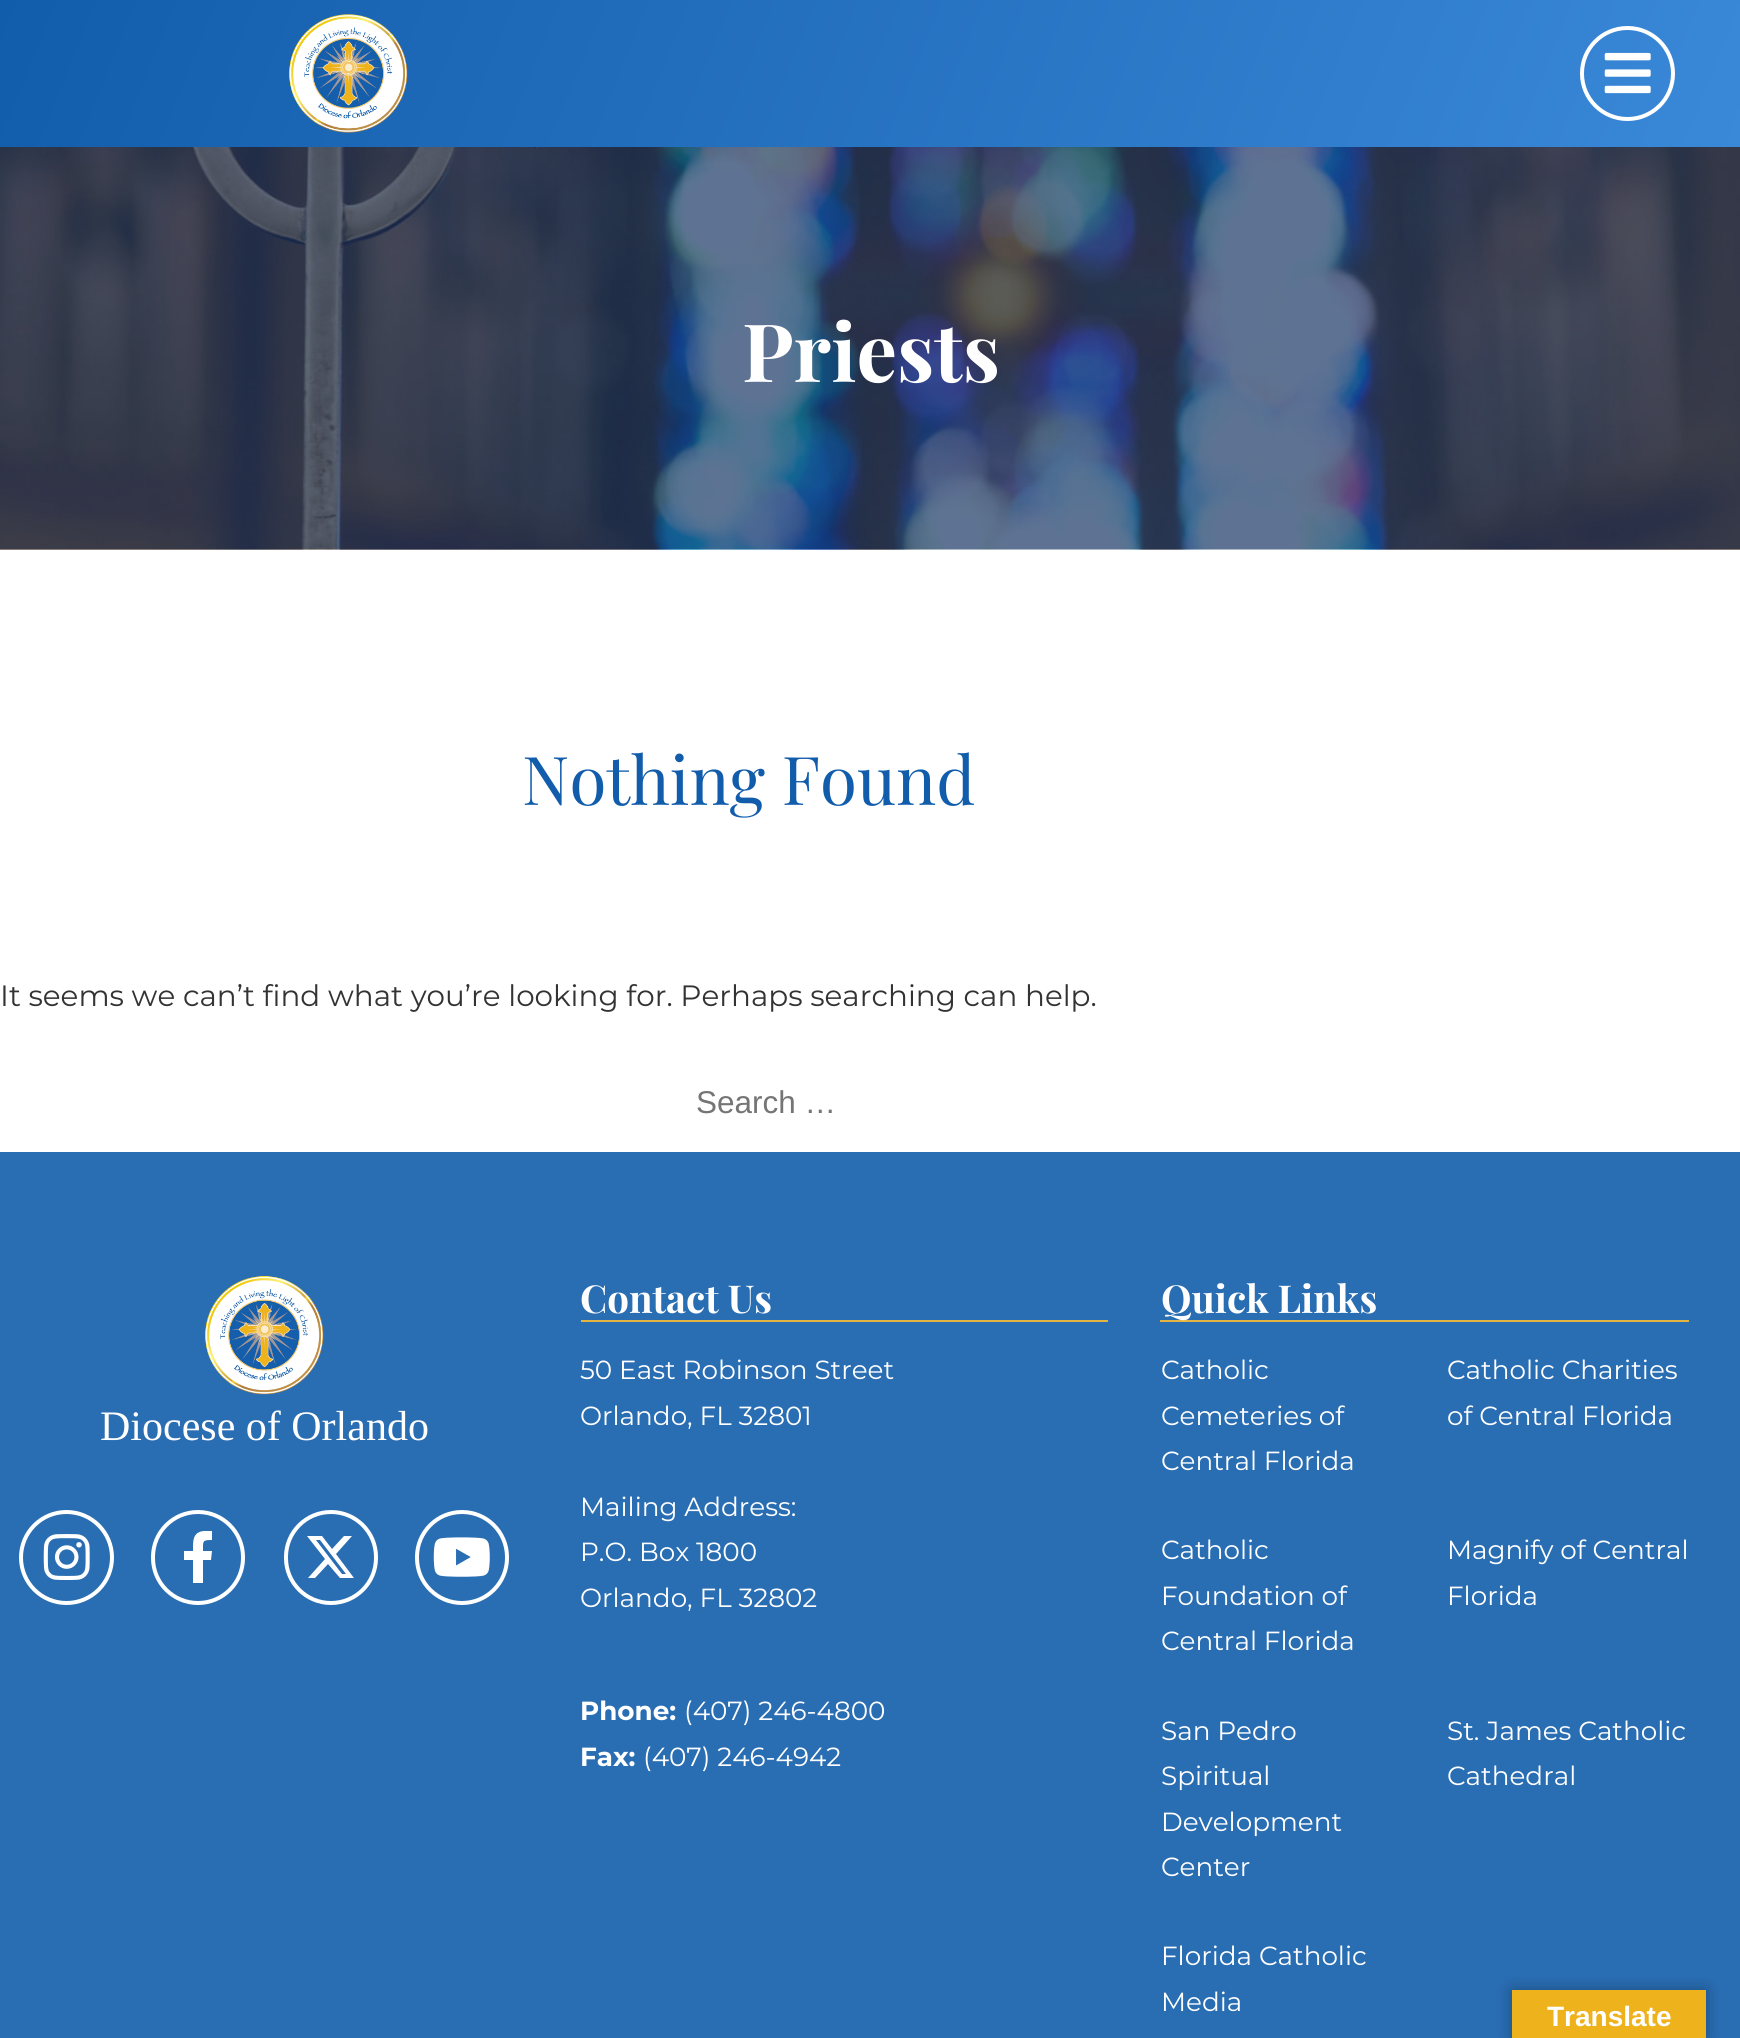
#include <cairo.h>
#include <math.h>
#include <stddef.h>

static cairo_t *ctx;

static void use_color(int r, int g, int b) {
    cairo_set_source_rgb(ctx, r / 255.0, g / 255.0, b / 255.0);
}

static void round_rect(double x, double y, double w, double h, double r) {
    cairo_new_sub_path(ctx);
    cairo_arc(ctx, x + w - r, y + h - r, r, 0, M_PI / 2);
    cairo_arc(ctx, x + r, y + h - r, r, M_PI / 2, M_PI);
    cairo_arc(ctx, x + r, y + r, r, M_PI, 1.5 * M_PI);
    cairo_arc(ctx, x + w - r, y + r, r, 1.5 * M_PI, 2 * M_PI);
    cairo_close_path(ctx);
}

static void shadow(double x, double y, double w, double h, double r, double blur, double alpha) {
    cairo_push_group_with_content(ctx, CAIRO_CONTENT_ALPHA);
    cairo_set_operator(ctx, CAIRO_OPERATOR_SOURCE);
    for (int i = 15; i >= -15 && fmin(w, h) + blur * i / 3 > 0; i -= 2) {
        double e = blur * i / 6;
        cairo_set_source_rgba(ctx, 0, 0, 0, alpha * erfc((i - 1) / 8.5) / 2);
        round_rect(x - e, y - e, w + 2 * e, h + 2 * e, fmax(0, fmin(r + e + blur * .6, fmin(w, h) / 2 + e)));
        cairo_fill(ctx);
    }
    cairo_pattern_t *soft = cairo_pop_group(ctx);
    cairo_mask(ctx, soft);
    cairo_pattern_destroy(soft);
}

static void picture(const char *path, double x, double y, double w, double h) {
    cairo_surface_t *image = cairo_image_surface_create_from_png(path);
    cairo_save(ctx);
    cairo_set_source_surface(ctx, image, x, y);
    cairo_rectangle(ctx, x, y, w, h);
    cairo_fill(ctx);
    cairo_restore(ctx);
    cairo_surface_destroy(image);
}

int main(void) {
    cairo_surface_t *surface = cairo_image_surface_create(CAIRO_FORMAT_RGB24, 1740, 2038);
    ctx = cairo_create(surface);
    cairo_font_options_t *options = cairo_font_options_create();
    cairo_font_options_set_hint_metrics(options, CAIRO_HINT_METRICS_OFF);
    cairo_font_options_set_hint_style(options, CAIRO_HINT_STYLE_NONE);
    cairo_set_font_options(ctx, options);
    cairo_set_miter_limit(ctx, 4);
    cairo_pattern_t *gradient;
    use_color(255, 255, 255);
    cairo_paint(ctx);
    gradient = cairo_pattern_create_linear(97, -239, 1645, 386);
    cairo_pattern_add_color_stop_rgba(gradient, 0, 0.071, 0.365, 0.671, 1);
    cairo_pattern_add_color_stop_rgba(gradient, 1, 0.227, 0.533, 0.847, 1);
    cairo_set_source(ctx, gradient);
    cairo_pattern_destroy(gradient);
    cairo_rectangle(ctx, 0, 0, 1740, 147);
    cairo_fill(ctx);
    picture("img1.png", 289, 14, 119, 119);
    cairo_arc(ctx, 1627.5, 73.5, 45.5, 0, 2 * M_PI);
    use_color(255, 255, 255);
    cairo_set_line_width(ctx, 4);
    cairo_stroke(ctx);
    picture("img2.png", 1604, 52, 47, 42);
    picture("img3.png", 0, 147, 1740, 403);
    cairo_select_font_face(ctx, "Playfair Display", CAIRO_FONT_SLANT_NORMAL, CAIRO_FONT_WEIGHT_BOLD);
    cairo_set_font_size(ctx, 80.5);
    cairo_move_to(ctx, 742, 382);
    cairo_show_text(ctx, "Priests");
    cairo_select_font_face(ctx, "Playfair Display", CAIRO_FONT_SLANT_NORMAL, CAIRO_FONT_WEIGHT_NORMAL);
    cairo_set_font_size(ctx, 67.25);
    use_color(18, 93, 171);
    cairo_move_to(ctx, 522, 805);
    cairo_show_text(ctx, "Nothing Found");
    cairo_select_font_face(ctx, "Montserrat", CAIRO_FONT_SLANT_NORMAL, CAIRO_FONT_WEIGHT_NORMAL);
    cairo_set_font_size(ctx, 29.4);
    use_color(51, 51, 51);
    cairo_move_to(ctx, 0, 1006);
    cairo_show_text(ctx, "It seems we can’t find what you’re looking for. Perhaps searching can help.");
    cairo_select_font_face(ctx, "Liberation Sans", CAIRO_FONT_SLANT_NORMAL, CAIRO_FONT_WEIGHT_NORMAL);
    cairo_set_font_size(ctx, 31.5);
    use_color(117, 117, 117);
    cairo_move_to(ctx, 696, 1113);
    cairo_show_text(ctx, "Search …");
    use_color(41, 109, 179);
    cairo_rectangle(ctx, 0, 1152, 1740, 886);
    cairo_fill(ctx);
    picture("img4.png", 205, 1276, 119, 119);
    cairo_select_font_face(ctx, "Liberation Serif", CAIRO_FONT_SLANT_NORMAL, CAIRO_FONT_WEIGHT_NORMAL);
    cairo_set_font_size(ctx, 42);
    use_color(255, 255, 255);
    cairo_move_to(ctx, 100, 1440);
    cairo_show_text(ctx, "Diocese of Orlando");
    cairo_new_path(ctx);
    cairo_arc(ctx, 66.5, 1557.5, 45.5, 0, 2 * M_PI);
    cairo_stroke(ctx);
    picture("img5.png", 43, 1534, 47, 46);
    round_rect(153, 1512, 90, 91, 45);
    cairo_stroke(ctx);
    cairo_new_path(ctx);
    cairo_move_to(ctx, 211, 1560);
    cairo_line_to(ctx, 212, 1551);
    cairo_line_to(ctx, 203, 1551);
    cairo_curve_to(ctx, 203, 1541, 202, 1540, 212, 1540);
    cairo_line_to(ctx, 212, 1531);
    cairo_line_to(ctx, 204, 1531);
    cairo_curve_to(ctx, 192, 1532, 193, 1542, 193, 1551);
    cairo_line_to(ctx, 184, 1551);
    cairo_line_to(ctx, 184, 1560);
    cairo_line_to(ctx, 193, 1560);
    cairo_line_to(ctx, 193, 1583);
    cairo_line_to(ctx, 203, 1583);
    cairo_line_to(ctx, 203, 1560);
    cairo_close_path(ctx);
    cairo_fill(ctx);
    round_rect(286, 1512, 90, 91, 45);
    cairo_stroke(ctx);
    cairo_new_path(ctx);
    cairo_move_to(ctx, 344, 1536);
    cairo_line_to(ctx, 352, 1536);
    cairo_line_to(ctx, 336, 1554);
    cairo_line_to(ctx, 354, 1578);
    cairo_line_to(ctx, 340, 1578);
    cairo_line_to(ctx, 328, 1564);
    cairo_line_to(ctx, 315, 1578);
    cairo_line_to(ctx, 308, 1578);
    cairo_line_to(ctx, 325, 1559);
    cairo_line_to(ctx, 307, 1536);
    cairo_line_to(ctx, 322, 1536);
    cairo_line_to(ctx, 332, 1549);
    cairo_close_path(ctx);
    cairo_move_to(ctx, 342, 1574);
    cairo_line_to(ctx, 346, 1574);
    cairo_line_to(ctx, 320, 1540);
    cairo_line_to(ctx, 316, 1540);
    cairo_close_path(ctx);
    cairo_fill(ctx);
    round_rect(417, 1512, 90, 91, 45);
    cairo_stroke(ctx);
    picture("img6.png", 433, 1537, 57, 40);
    use_color(229, 181, 68);
    cairo_rectangle(ctx, 581, 1320, 527, 2);
    cairo_fill(ctx);
    cairo_select_font_face(ctx, "Playfair Display", CAIRO_FONT_SLANT_NORMAL, CAIRO_FONT_WEIGHT_BOLD);
    cairo_set_font_size(ctx, 38.5);
    use_color(255, 255, 255);
    cairo_move_to(ctx, 580, 1313);
    cairo_show_text(ctx, "Contact Us");
    cairo_select_font_face(ctx, "Montserrat", CAIRO_FONT_SLANT_NORMAL, CAIRO_FONT_WEIGHT_NORMAL);
    cairo_set_font_size(ctx, 26.25);
    cairo_move_to(ctx, 580, 1379);
    cairo_show_text(ctx, "50 East Robinson Street");
    cairo_move_to(ctx, 580, 1425);
    cairo_show_text(ctx, "Orlando, FL 32801");
    cairo_move_to(ctx, 580, 1516);
    cairo_show_text(ctx, "Mailing Address:");
    cairo_move_to(ctx, 580, 1561);
    cairo_show_text(ctx, "P.O. Box 1800");
    cairo_move_to(ctx, 580, 1607);
    cairo_show_text(ctx, "Orlando, FL 32802");
    cairo_select_font_face(ctx, "Montserrat", CAIRO_FONT_SLANT_NORMAL, CAIRO_FONT_WEIGHT_BOLD);
    cairo_move_to(ctx, 580, 1720);
    cairo_show_text(ctx, "Phone:");
    cairo_select_font_face(ctx, "Montserrat", CAIRO_FONT_SLANT_NORMAL, CAIRO_FONT_WEIGHT_NORMAL);
    cairo_move_to(ctx, 684, 1720);
    cairo_show_text(ctx, "(407) 246-4800");
    cairo_select_font_face(ctx, "Montserrat", CAIRO_FONT_SLANT_NORMAL, CAIRO_FONT_WEIGHT_BOLD);
    cairo_move_to(ctx, 580, 1766);
    cairo_show_text(ctx, "Fax:");
    cairo_select_font_face(ctx, "Montserrat", CAIRO_FONT_SLANT_NORMAL, CAIRO_FONT_WEIGHT_NORMAL);
    cairo_move_to(ctx, 643, 1766);
    cairo_show_text(ctx, "(407) 246-4942");
    use_color(229, 181, 68);
    cairo_rectangle(ctx, 1160, 1320, 529, 2);
    cairo_fill(ctx);
    cairo_select_font_face(ctx, "Playfair Display", CAIRO_FONT_SLANT_NORMAL, CAIRO_FONT_WEIGHT_BOLD);
    cairo_set_font_size(ctx, 38.5);
    use_color(255, 255, 255);
    cairo_move_to(ctx, 1161, 1313);
    cairo_show_text(ctx, "Quick Links");
    cairo_select_font_face(ctx, "Montserrat", CAIRO_FONT_SLANT_NORMAL, CAIRO_FONT_WEIGHT_NORMAL);
    cairo_set_font_size(ctx, 26.25);
    cairo_move_to(ctx, 1161, 1379);
    cairo_show_text(ctx, "Catholic");
    cairo_move_to(ctx, 1161, 1425);
    cairo_show_text(ctx, "Cemeteries of");
    cairo_move_to(ctx, 1161, 1470);
    cairo_show_text(ctx, "Central Florida");
    cairo_move_to(ctx, 1447, 1379);
    cairo_show_text(ctx, "Catholic Charities");
    cairo_move_to(ctx, 1447, 1425);
    cairo_show_text(ctx, "of Central Florida");
    cairo_move_to(ctx, 1161, 1559);
    cairo_show_text(ctx, "Catholic");
    cairo_move_to(ctx, 1161, 1605);
    cairo_show_text(ctx, "Foundation of");
    cairo_move_to(ctx, 1161, 1650);
    cairo_show_text(ctx, "Central Florida");
    cairo_move_to(ctx, 1447, 1559);
    cairo_show_text(ctx, "Magnify of Central");
    cairo_move_to(ctx, 1447, 1605);
    cairo_show_text(ctx, "Florida");
    cairo_move_to(ctx, 1161, 1740);
    cairo_show_text(ctx, "San Pedro");
    cairo_move_to(ctx, 1161, 1785);
    cairo_show_text(ctx, "Spiritual");
    cairo_move_to(ctx, 1161, 1831);
    cairo_show_text(ctx, "Development");
    cairo_move_to(ctx, 1161, 1876);
    cairo_show_text(ctx, "Center");
    cairo_move_to(ctx, 1447, 1740);
    cairo_show_text(ctx, "St. James Catholic");
    cairo_move_to(ctx, 1447, 1785);
    cairo_show_text(ctx, "Cathedral");
    cairo_move_to(ctx, 1161, 1965);
    cairo_show_text(ctx, "Florida Catholic");
    cairo_move_to(ctx, 1161, 2011);
    cairo_show_text(ctx, "Media");
    use_color(0, 0, 0);
    shadow(1512, 1990, 194, 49, 0, 8, 0.3);
    use_color(238, 178, 28);
    cairo_rectangle(ctx, 1512, 1990, 194, 48);
    cairo_fill(ctx);
    cairo_select_font_face(ctx, "Liberation Sans", CAIRO_FONT_SLANT_NORMAL, CAIRO_FONT_WEIGHT_BOLD);
    cairo_set_font_size(ctx, 28);
    use_color(255, 255, 255);
    cairo_move_to(ctx, 1547, 2026);
    cairo_show_text(ctx, "Translate");
    cairo_surface_write_to_png(surface, "result.png");
    cairo_font_options_destroy(options);
    cairo_destroy(ctx);
    cairo_surface_destroy(surface);
    return 0;
}
